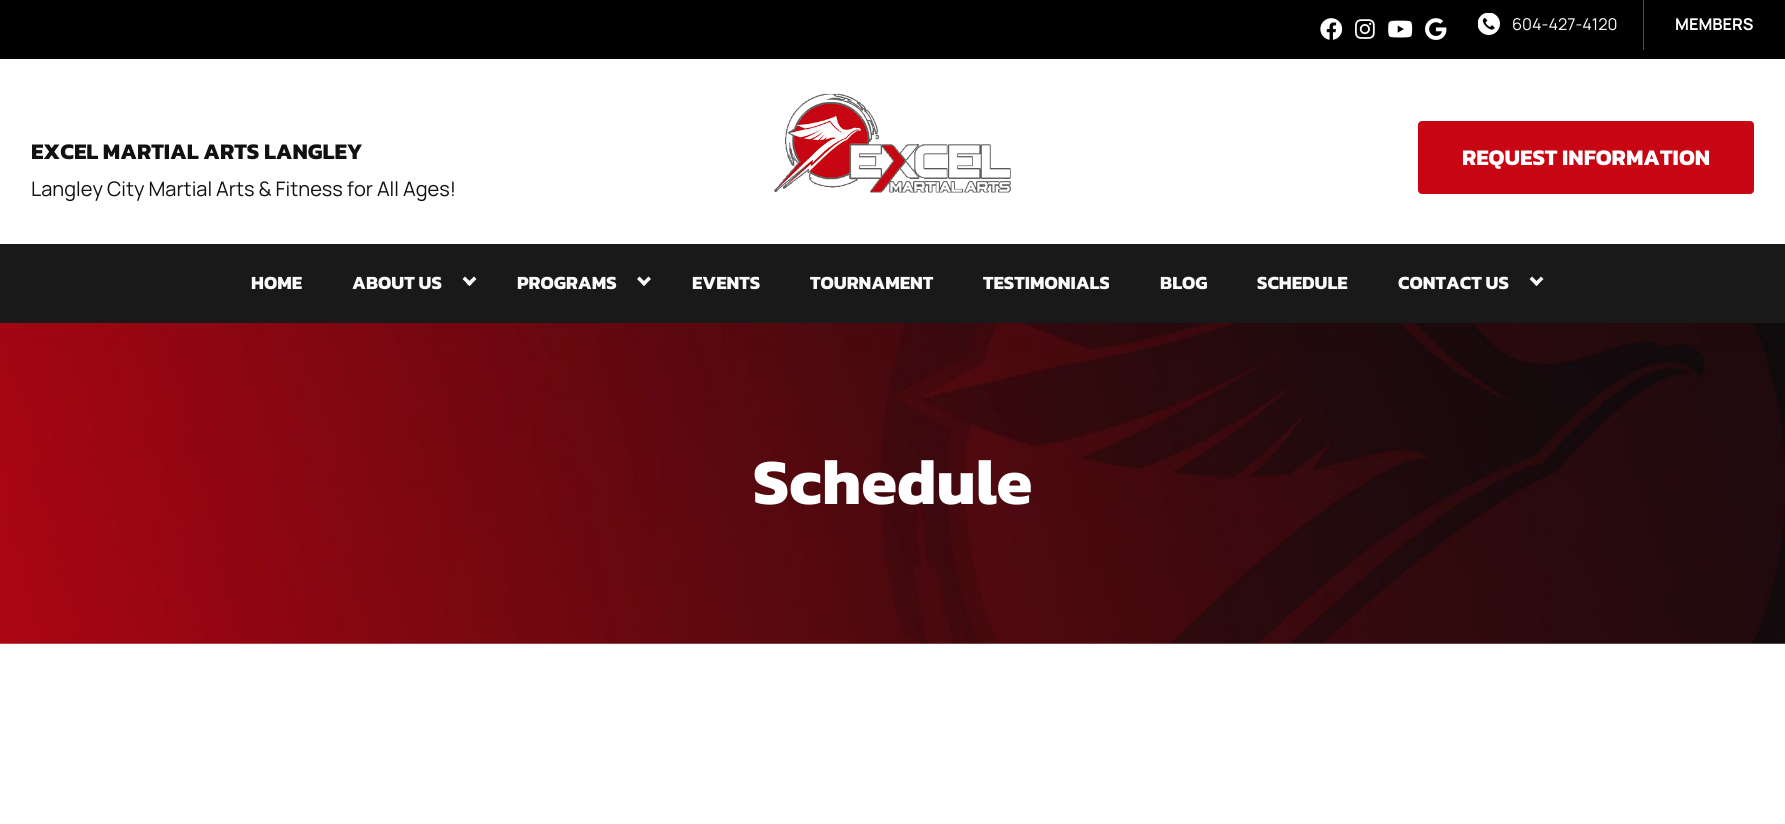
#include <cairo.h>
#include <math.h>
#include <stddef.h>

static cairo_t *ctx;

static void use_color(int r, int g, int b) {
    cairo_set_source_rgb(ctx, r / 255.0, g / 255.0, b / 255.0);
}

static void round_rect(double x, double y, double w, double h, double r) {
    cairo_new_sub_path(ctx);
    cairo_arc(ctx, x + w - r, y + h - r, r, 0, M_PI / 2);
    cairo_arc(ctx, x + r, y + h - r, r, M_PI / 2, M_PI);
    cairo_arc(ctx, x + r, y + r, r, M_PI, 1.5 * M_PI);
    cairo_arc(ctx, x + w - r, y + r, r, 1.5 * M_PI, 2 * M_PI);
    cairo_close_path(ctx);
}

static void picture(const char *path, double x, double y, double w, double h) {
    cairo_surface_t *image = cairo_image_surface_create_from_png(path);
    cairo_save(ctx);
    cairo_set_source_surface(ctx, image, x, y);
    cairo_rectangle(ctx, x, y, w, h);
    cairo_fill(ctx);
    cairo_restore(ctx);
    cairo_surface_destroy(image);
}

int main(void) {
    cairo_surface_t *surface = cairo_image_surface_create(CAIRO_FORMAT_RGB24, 1785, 824);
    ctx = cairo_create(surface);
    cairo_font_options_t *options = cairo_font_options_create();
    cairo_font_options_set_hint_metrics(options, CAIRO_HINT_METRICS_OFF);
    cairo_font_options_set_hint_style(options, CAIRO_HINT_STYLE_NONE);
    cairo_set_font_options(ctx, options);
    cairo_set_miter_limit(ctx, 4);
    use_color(255, 255, 255);
    cairo_paint(ctx);
    use_color(0, 0, 0);
    cairo_rectangle(ctx, 0, 0, 1785, 59);
    cairo_fill(ctx);
    picture("img1.png", 1320, 18, 23, 22);
    picture("img2.png", 1355, 19, 20, 20);
    picture("img3.png", 1388, 20, 25, 18);
    picture("img4.png", 1425, 18, 22, 22);
    picture("img5.png", 1478, 13, 22, 22);
    cairo_select_font_face(ctx, "Manrope", CAIRO_FONT_SLANT_NORMAL, CAIRO_FONT_WEIGHT_NORMAL);
    cairo_set_font_size(ctx, 16.25);
    use_color(255, 255, 255);
    cairo_move_to(ctx, 1512, 30);
    cairo_show_text(ctx, "604-427-4120");
    use_color(77, 77, 77);
    cairo_rectangle(ctx, 1643, 0, 1, 50);
    cairo_fill(ctx);
    cairo_select_font_face(ctx, "Manrope", CAIRO_FONT_SLANT_NORMAL, CAIRO_FONT_WEIGHT_BOLD);
    use_color(255, 255, 255);
    cairo_move_to(ctx, 1675, 30);
    cairo_show_text(ctx, "MEMBERS");
    cairo_select_font_face(ctx, "Kanit", CAIRO_FONT_SLANT_NORMAL, CAIRO_FONT_WEIGHT_BOLD);
    cairo_set_font_size(ctx, 22.5);
    use_color(17, 17, 17);
    cairo_move_to(ctx, 31, 159);
    cairo_show_text(ctx, "EXCEL MARTIAL ARTS LANGLEY");
    cairo_select_font_face(ctx, "Manrope", CAIRO_FONT_SLANT_NORMAL, CAIRO_FONT_WEIGHT_NORMAL);
    cairo_set_font_size(ctx, 20);
    cairo_move_to(ctx, 31, 196);
    cairo_show_text(ctx, "Langley City Martial Arts & Fitness for All Ages!");
    picture("img6.png", 774, 93, 237, 100);
    use_color(200, 5, 19);
    round_rect(1418, 121, 336, 73, 4);
    cairo_fill(ctx);
    cairo_select_font_face(ctx, "Kanit", CAIRO_FONT_SLANT_NORMAL, CAIRO_FONT_WEIGHT_BOLD);
    cairo_set_font_size(ctx, 22.5);
    use_color(255, 255, 255);
    cairo_move_to(ctx, 1462, 165);
    cairo_show_text(ctx, "REQUEST INFORMATION");
    use_color(25, 25, 25);
    cairo_rectangle(ctx, 0, 244, 1785, 79);
    cairo_fill(ctx);
    cairo_set_font_size(ctx, 18.75);
    use_color(249, 249, 249);
    cairo_move_to(ctx, 251, 289);
    cairo_show_text(ctx, "HOME");
    cairo_move_to(ctx, 352, 289);
    cairo_show_text(ctx, "ABOUT US");
    cairo_new_path(ctx);
    cairo_move_to(ctx, 474, 276.5);
    cairo_line_to(ctx, 476.5, 279);
    cairo_line_to(ctx, 469.5, 286);
    cairo_line_to(ctx, 466.5, 283.5);
    cairo_close_path(ctx);
    cairo_fill(ctx);
    cairo_new_path(ctx);
    cairo_move_to(ctx, 465, 276.5);
    cairo_line_to(ctx, 472, 283.5);
    cairo_line_to(ctx, 469.5, 286);
    cairo_line_to(ctx, 462.5, 279);
    cairo_close_path(ctx);
    cairo_fill(ctx);
    cairo_move_to(ctx, 517, 289);
    cairo_show_text(ctx, "PROGRAMS");
    cairo_new_path(ctx);
    cairo_move_to(ctx, 648.5, 276.5);
    cairo_line_to(ctx, 651, 279);
    cairo_line_to(ctx, 644, 286);
    cairo_line_to(ctx, 641.5, 283.5);
    cairo_close_path(ctx);
    cairo_fill(ctx);
    cairo_new_path(ctx);
    cairo_move_to(ctx, 639.5, 276.5);
    cairo_line_to(ctx, 646.5, 283.5);
    cairo_line_to(ctx, 644, 286);
    cairo_line_to(ctx, 637, 279);
    cairo_close_path(ctx);
    cairo_fill(ctx);
    cairo_move_to(ctx, 692, 289);
    cairo_show_text(ctx, "EVENTS");
    cairo_move_to(ctx, 810, 289);
    cairo_show_text(ctx, "TOURNAMENT");
    cairo_move_to(ctx, 983, 289);
    cairo_show_text(ctx, "TESTIMONIALS");
    cairo_move_to(ctx, 1160, 289);
    cairo_show_text(ctx, "BLOG");
    cairo_move_to(ctx, 1257, 289);
    cairo_show_text(ctx, "SCHEDULE");
    cairo_move_to(ctx, 1398, 289);
    cairo_show_text(ctx, "CONTACT US");
    cairo_new_path(ctx);
    cairo_move_to(ctx, 1541, 276.5);
    cairo_line_to(ctx, 1543.5, 279);
    cairo_line_to(ctx, 1536.5, 286);
    cairo_line_to(ctx, 1534, 283.5);
    cairo_close_path(ctx);
    cairo_fill(ctx);
    cairo_new_path(ctx);
    cairo_move_to(ctx, 1532, 276.5);
    cairo_line_to(ctx, 1539, 283.5);
    cairo_line_to(ctx, 1536.5, 286);
    cairo_line_to(ctx, 1529.5, 279);
    cairo_close_path(ctx);
    cairo_fill(ctx);
    picture("img7.png", 0, 323, 1785, 321);
    cairo_set_font_size(ctx, 65);
    use_color(255, 255, 255);
    cairo_move_to(ctx, 753, 504);
    cairo_show_text(ctx, "Schedule");
    cairo_surface_write_to_png(surface, "result.png");
    cairo_font_options_destroy(options);
    cairo_destroy(ctx);
    cairo_surface_destroy(surface);
    return 0;
}
